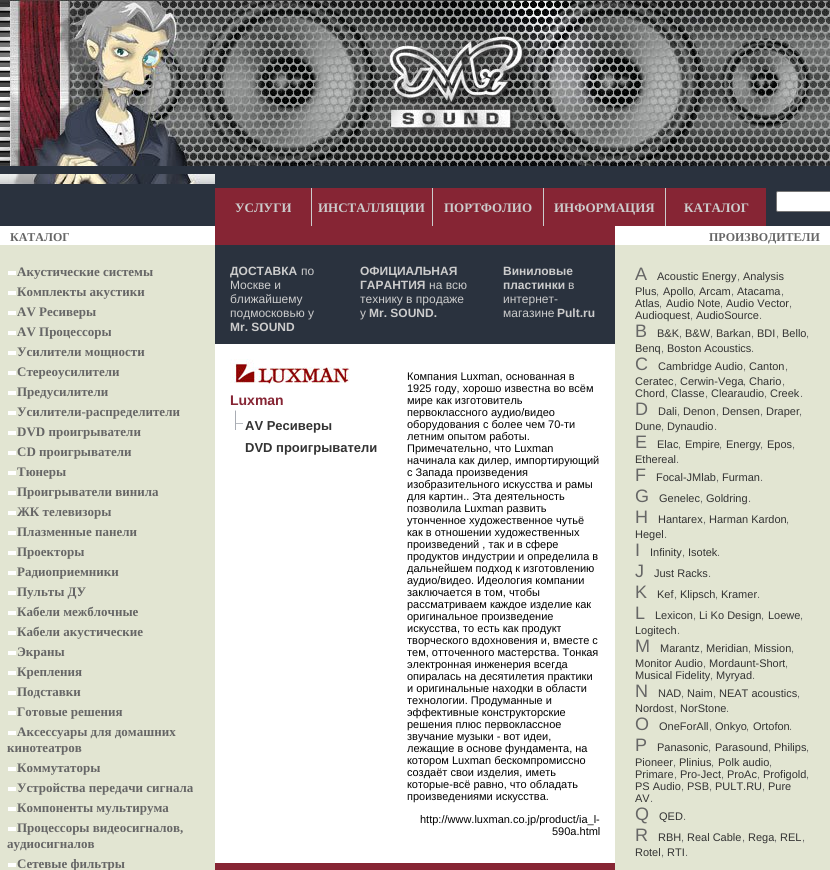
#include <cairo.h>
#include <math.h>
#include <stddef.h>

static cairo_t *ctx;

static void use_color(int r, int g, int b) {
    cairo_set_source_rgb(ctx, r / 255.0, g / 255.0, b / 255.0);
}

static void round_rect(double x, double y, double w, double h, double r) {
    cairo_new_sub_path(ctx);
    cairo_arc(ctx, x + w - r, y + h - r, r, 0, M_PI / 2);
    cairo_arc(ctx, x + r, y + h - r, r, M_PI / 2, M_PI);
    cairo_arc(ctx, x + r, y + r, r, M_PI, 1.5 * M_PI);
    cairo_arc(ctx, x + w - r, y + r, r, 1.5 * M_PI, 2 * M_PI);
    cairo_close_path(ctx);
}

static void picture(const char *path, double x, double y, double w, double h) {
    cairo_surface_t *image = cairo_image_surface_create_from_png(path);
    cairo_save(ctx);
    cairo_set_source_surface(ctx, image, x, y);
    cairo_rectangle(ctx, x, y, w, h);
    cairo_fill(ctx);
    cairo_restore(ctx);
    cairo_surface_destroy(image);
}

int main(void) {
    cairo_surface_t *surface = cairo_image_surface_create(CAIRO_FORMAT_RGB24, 830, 870);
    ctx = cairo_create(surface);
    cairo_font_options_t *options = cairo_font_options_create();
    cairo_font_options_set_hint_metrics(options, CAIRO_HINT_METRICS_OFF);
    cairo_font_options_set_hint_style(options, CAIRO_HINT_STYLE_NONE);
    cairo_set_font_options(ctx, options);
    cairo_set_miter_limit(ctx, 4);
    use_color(255, 255, 255);
    cairo_paint(ctx);
    use_color(42, 50, 62);
    cairo_rectangle(ctx, 0, 166, 830, 60);
    cairo_fill(ctx);
    picture("img1.png", 0, 0, 830, 166);
    picture("img2.png", 0, 174, 215, 10);
    use_color(134, 37, 52);
    cairo_rectangle(ctx, 215, 188, 96, 38);
    cairo_fill(ctx);
    cairo_select_font_face(ctx, "Liberation Serif", CAIRO_FONT_SLANT_NORMAL, CAIRO_FONT_WEIGHT_BOLD);
    cairo_set_font_size(ctx, 13);
    use_color(204, 204, 204);
    cairo_move_to(ctx, 235, 212);
    cairo_show_text(ctx, "УСЛУГИ");
    cairo_rectangle(ctx, 311, 188, 1, 38);
    cairo_fill(ctx);
    use_color(134, 37, 52);
    cairo_rectangle(ctx, 312, 188, 120, 38);
    cairo_fill(ctx);
    use_color(204, 204, 204);
    cairo_move_to(ctx, 318, 212);
    cairo_show_text(ctx, "ИНСТАЛЛЯЦИИ");
    cairo_rectangle(ctx, 432, 188, 1, 38);
    cairo_fill(ctx);
    use_color(134, 37, 52);
    cairo_rectangle(ctx, 433, 188, 110, 38);
    cairo_fill(ctx);
    use_color(204, 204, 204);
    cairo_move_to(ctx, 444, 212);
    cairo_show_text(ctx, "ПОРТФОЛИО");
    cairo_rectangle(ctx, 543, 188, 1, 38);
    cairo_fill(ctx);
    use_color(134, 37, 52);
    cairo_rectangle(ctx, 544, 188, 121, 38);
    cairo_fill(ctx);
    use_color(204, 204, 204);
    cairo_move_to(ctx, 554, 212);
    cairo_show_text(ctx, "ИНФОРМАЦИЯ");
    cairo_rectangle(ctx, 665, 188, 1, 38);
    cairo_fill(ctx);
    use_color(134, 37, 52);
    cairo_rectangle(ctx, 666, 188, 100, 38);
    cairo_fill(ctx);
    use_color(204, 204, 204);
    cairo_move_to(ctx, 684, 212);
    cairo_show_text(ctx, "КАТАЛОГ");
    use_color(255, 255, 255);
    round_rect(776.5, 191.5, 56, 20, 1.5);
    cairo_fill_preserve(ctx);
    use_color(118, 118, 118);
    cairo_set_line_width(ctx, 1);
    cairo_stroke(ctx);
    cairo_set_font_size(ctx, 12);
    use_color(102, 102, 102);
    cairo_move_to(ctx, 10, 241);
    cairo_show_text(ctx, "КАТАЛОГ");
    use_color(134, 37, 52);
    cairo_rectangle(ctx, 215, 226, 400, 19);
    cairo_fill(ctx);
    use_color(102, 102, 102);
    cairo_move_to(ctx, 709, 241);
    cairo_show_text(ctx, "ПРОИЗВОДИТЕЛИ");
    use_color(226, 229, 210);
    cairo_rectangle(ctx, 0, 245, 215, 625);
    cairo_fill(ctx);
    use_color(42, 50, 62);
    cairo_rectangle(ctx, 215, 245, 400, 19);
    cairo_fill(ctx);
    use_color(226, 229, 210);
    cairo_rectangle(ctx, 615, 245, 215, 625);
    cairo_fill(ctx);
    use_color(255, 255, 255);
    cairo_rectangle(ctx, 8, 271, 8, 4);
    cairo_fill(ctx);
    cairo_set_font_size(ctx, 13);
    use_color(102, 102, 102);
    cairo_move_to(ctx, 17, 276);
    cairo_show_text(ctx, "Акустические системы");
    use_color(255, 255, 255);
    cairo_rectangle(ctx, 8, 291, 8, 4);
    cairo_fill(ctx);
    use_color(102, 102, 102);
    cairo_move_to(ctx, 17, 296);
    cairo_show_text(ctx, "Комплекты акустики");
    use_color(255, 255, 255);
    cairo_rectangle(ctx, 8, 311, 8, 4);
    cairo_fill(ctx);
    use_color(102, 102, 102);
    cairo_move_to(ctx, 17, 316);
    cairo_show_text(ctx, "AV Ресиверы");
    use_color(255, 255, 255);
    cairo_rectangle(ctx, 8, 331, 8, 4);
    cairo_fill(ctx);
    use_color(102, 102, 102);
    cairo_move_to(ctx, 17, 336);
    cairo_show_text(ctx, "AV Процессоры");
    use_color(255, 255, 255);
    cairo_rectangle(ctx, 8, 351, 8, 4);
    cairo_fill(ctx);
    use_color(102, 102, 102);
    cairo_move_to(ctx, 17, 356);
    cairo_show_text(ctx, "Усилители мощности");
    use_color(255, 255, 255);
    cairo_rectangle(ctx, 8, 371, 8, 4);
    cairo_fill(ctx);
    use_color(102, 102, 102);
    cairo_move_to(ctx, 17, 376);
    cairo_show_text(ctx, "Стереоусилители");
    use_color(255, 255, 255);
    cairo_rectangle(ctx, 8, 391, 8, 4);
    cairo_fill(ctx);
    use_color(102, 102, 102);
    cairo_move_to(ctx, 17, 396);
    cairo_show_text(ctx, "Предусилители");
    use_color(255, 255, 255);
    cairo_rectangle(ctx, 8, 411, 8, 4);
    cairo_fill(ctx);
    use_color(102, 102, 102);
    cairo_move_to(ctx, 17, 416);
    cairo_show_text(ctx, "Усилители-распределители");
    use_color(255, 255, 255);
    cairo_rectangle(ctx, 8, 431, 8, 4);
    cairo_fill(ctx);
    use_color(102, 102, 102);
    cairo_move_to(ctx, 17, 436);
    cairo_show_text(ctx, "DVD проигрыватели");
    use_color(255, 255, 255);
    cairo_rectangle(ctx, 8, 451, 8, 4);
    cairo_fill(ctx);
    use_color(102, 102, 102);
    cairo_move_to(ctx, 17, 456);
    cairo_show_text(ctx, "CD проигрыватели");
    use_color(255, 255, 255);
    cairo_rectangle(ctx, 8, 471, 8, 4);
    cairo_fill(ctx);
    use_color(102, 102, 102);
    cairo_move_to(ctx, 17, 476);
    cairo_show_text(ctx, "Тюнеры");
    use_color(255, 255, 255);
    cairo_rectangle(ctx, 8, 491, 8, 4);
    cairo_fill(ctx);
    use_color(102, 102, 102);
    cairo_move_to(ctx, 17, 496);
    cairo_show_text(ctx, "Проигрыватели винила");
    use_color(255, 255, 255);
    cairo_rectangle(ctx, 8, 511, 8, 4);
    cairo_fill(ctx);
    use_color(102, 102, 102);
    cairo_move_to(ctx, 17, 516);
    cairo_show_text(ctx, "ЖК телевизоры");
    use_color(255, 255, 255);
    cairo_rectangle(ctx, 8, 531, 8, 4);
    cairo_fill(ctx);
    use_color(102, 102, 102);
    cairo_move_to(ctx, 17, 536);
    cairo_show_text(ctx, "Плазменные панели");
    use_color(255, 255, 255);
    cairo_rectangle(ctx, 8, 551, 8, 4);
    cairo_fill(ctx);
    use_color(102, 102, 102);
    cairo_move_to(ctx, 17, 556);
    cairo_show_text(ctx, "Проекторы");
    use_color(255, 255, 255);
    cairo_rectangle(ctx, 8, 571, 8, 4);
    cairo_fill(ctx);
    use_color(102, 102, 102);
    cairo_move_to(ctx, 17, 576);
    cairo_show_text(ctx, "Радиоприемники");
    use_color(255, 255, 255);
    cairo_rectangle(ctx, 8, 591, 8, 4);
    cairo_fill(ctx);
    use_color(102, 102, 102);
    cairo_move_to(ctx, 17, 596);
    cairo_show_text(ctx, "Пульты ДУ");
    use_color(255, 255, 255);
    cairo_rectangle(ctx, 8, 611, 8, 4);
    cairo_fill(ctx);
    use_color(102, 102, 102);
    cairo_move_to(ctx, 17, 616);
    cairo_show_text(ctx, "Кабели межблочные");
    use_color(255, 255, 255);
    cairo_rectangle(ctx, 8, 631, 8, 4);
    cairo_fill(ctx);
    use_color(102, 102, 102);
    cairo_move_to(ctx, 17, 636);
    cairo_show_text(ctx, "Кабели акустические");
    use_color(255, 255, 255);
    cairo_rectangle(ctx, 8, 651, 8, 4);
    cairo_fill(ctx);
    use_color(102, 102, 102);
    cairo_move_to(ctx, 17, 656);
    cairo_show_text(ctx, "Экраны");
    use_color(255, 255, 255);
    cairo_rectangle(ctx, 8, 671, 8, 4);
    cairo_fill(ctx);
    use_color(102, 102, 102);
    cairo_move_to(ctx, 17, 676);
    cairo_show_text(ctx, "Крепления");
    use_color(255, 255, 255);
    cairo_rectangle(ctx, 8, 691, 8, 4);
    cairo_fill(ctx);
    use_color(102, 102, 102);
    cairo_move_to(ctx, 17, 696);
    cairo_show_text(ctx, "Подставки");
    use_color(255, 255, 255);
    cairo_rectangle(ctx, 8, 711, 8, 4);
    cairo_fill(ctx);
    use_color(102, 102, 102);
    cairo_move_to(ctx, 17, 716);
    cairo_show_text(ctx, "Готовые решения");
    use_color(255, 255, 255);
    cairo_rectangle(ctx, 8, 731, 8, 4);
    cairo_fill(ctx);
    use_color(102, 102, 102);
    cairo_move_to(ctx, 17, 736);
    cairo_show_text(ctx, "Аксессуары для домашних");
    cairo_move_to(ctx, 7, 752);
    cairo_show_text(ctx, "кинотеатров");
    use_color(255, 255, 255);
    cairo_rectangle(ctx, 8, 767, 8, 4);
    cairo_fill(ctx);
    use_color(102, 102, 102);
    cairo_move_to(ctx, 17, 772);
    cairo_show_text(ctx, "Коммутаторы");
    use_color(255, 255, 255);
    cairo_rectangle(ctx, 8, 787, 8, 4);
    cairo_fill(ctx);
    use_color(102, 102, 102);
    cairo_move_to(ctx, 17, 792);
    cairo_show_text(ctx, "Устройства передачи сигнала");
    use_color(255, 255, 255);
    cairo_rectangle(ctx, 8, 807, 8, 4);
    cairo_fill(ctx);
    use_color(102, 102, 102);
    cairo_move_to(ctx, 17, 812);
    cairo_show_text(ctx, "Компоненты мультирума");
    use_color(255, 255, 255);
    cairo_rectangle(ctx, 8, 827, 8, 4);
    cairo_fill(ctx);
    use_color(102, 102, 102);
    cairo_move_to(ctx, 17, 832);
    cairo_show_text(ctx, "Процессоры видеосигналов,");
    cairo_move_to(ctx, 7, 848);
    cairo_show_text(ctx, "аудиосигналов");
    use_color(255, 255, 255);
    cairo_rectangle(ctx, 8, 863, 8, 4);
    cairo_fill(ctx);
    use_color(102, 102, 102);
    cairo_move_to(ctx, 17, 868);
    cairo_show_text(ctx, "Сетевые фильтры");
    use_color(42, 50, 62);
    cairo_rectangle(ctx, 215, 264, 400, 80);
    cairo_fill(ctx);
    cairo_select_font_face(ctx, "Liberation Sans", CAIRO_FONT_SLANT_NORMAL, CAIRO_FONT_WEIGHT_BOLD);
    cairo_set_font_size(ctx, 12);
    use_color(204, 204, 204);
    cairo_move_to(ctx, 230, 275);
    cairo_show_text(ctx, "ДОСТАВКА");
    cairo_select_font_face(ctx, "Liberation Sans", CAIRO_FONT_SLANT_NORMAL, CAIRO_FONT_WEIGHT_NORMAL);
    cairo_move_to(ctx, 301, 275);
    cairo_show_text(ctx, "по");
    cairo_move_to(ctx, 230, 289);
    cairo_show_text(ctx, "Москве и");
    cairo_move_to(ctx, 230, 303);
    cairo_show_text(ctx, "ближайшему");
    cairo_move_to(ctx, 230, 317);
    cairo_show_text(ctx, "подмосковью у");
    cairo_select_font_face(ctx, "Liberation Sans", CAIRO_FONT_SLANT_NORMAL, CAIRO_FONT_WEIGHT_BOLD);
    cairo_move_to(ctx, 230, 331);
    cairo_show_text(ctx, "Mr. SOUND");
    cairo_move_to(ctx, 360, 275);
    cairo_show_text(ctx, "ОФИЦИАЛЬНАЯ");
    cairo_move_to(ctx, 360, 289);
    cairo_show_text(ctx, "ГАРАНТИЯ");
    cairo_select_font_face(ctx, "Liberation Sans", CAIRO_FONT_SLANT_NORMAL, CAIRO_FONT_WEIGHT_NORMAL);
    cairo_move_to(ctx, 429, 289);
    cairo_show_text(ctx, "на всю");
    cairo_move_to(ctx, 360, 303);
    cairo_show_text(ctx, "технику в продаже");
    cairo_move_to(ctx, 360, 317);
    cairo_show_text(ctx, "у");
    cairo_select_font_face(ctx, "Liberation Sans", CAIRO_FONT_SLANT_NORMAL, CAIRO_FONT_WEIGHT_BOLD);
    cairo_move_to(ctx, 369, 317);
    cairo_show_text(ctx, "Мr. SOUND.");
    cairo_move_to(ctx, 503, 275);
    cairo_show_text(ctx, "Виниловые");
    cairo_move_to(ctx, 503, 289);
    cairo_show_text(ctx, "пластинки");
    cairo_select_font_face(ctx, "Liberation Sans", CAIRO_FONT_SLANT_NORMAL, CAIRO_FONT_WEIGHT_NORMAL);
    cairo_move_to(ctx, 568, 289);
    cairo_show_text(ctx, "в");
    cairo_move_to(ctx, 503, 303);
    cairo_show_text(ctx, "интернет-");
    cairo_move_to(ctx, 503, 317);
    cairo_show_text(ctx, "магазине");
    cairo_select_font_face(ctx, "Liberation Sans", CAIRO_FONT_SLANT_NORMAL, CAIRO_FONT_WEIGHT_BOLD);
    cairo_move_to(ctx, 557, 317);
    cairo_show_text(ctx, "Pult.ru");
    picture("img3.png", 230, 359, 120, 29);
    cairo_set_font_size(ctx, 14);
    use_color(134, 37, 52);
    cairo_move_to(ctx, 230, 405);
    cairo_show_text(ctx, "Luxman");
    picture("img4.png", 235, 410, 8, 20);
    cairo_set_font_size(ctx, 13);
    use_color(51, 51, 51);
    cairo_move_to(ctx, 245, 430);
    cairo_show_text(ctx, "AV Ресиверы");
    cairo_move_to(ctx, 245, 452);
    cairo_show_text(ctx, "DVD проигрыватели");
    cairo_select_font_face(ctx, "Liberation Sans", CAIRO_FONT_SLANT_NORMAL, CAIRO_FONT_WEIGHT_NORMAL);
    cairo_set_font_size(ctx, 11);
    use_color(0, 0, 0);
    cairo_move_to(ctx, 407, 380);
    cairo_show_text(ctx, "Компания Luxman, основанная в");
    cairo_move_to(ctx, 407, 392);
    cairo_show_text(ctx, "1925 году, хорошо известна во всём");
    cairo_move_to(ctx, 407, 404);
    cairo_show_text(ctx, "мире как изготовитель");
    cairo_move_to(ctx, 407, 416);
    cairo_show_text(ctx, "первоклассного аудио/видео");
    cairo_move_to(ctx, 407, 428);
    cairo_show_text(ctx, "оборудования с более чем 70-ти");
    cairo_move_to(ctx, 407, 440);
    cairo_show_text(ctx, "летним опытом работы.");
    cairo_move_to(ctx, 407, 452);
    cairo_show_text(ctx, "Примечательно, что Luxman");
    cairo_move_to(ctx, 407, 464);
    cairo_show_text(ctx, "начинала как дилер, импортирующий");
    cairo_move_to(ctx, 407, 476);
    cairo_show_text(ctx, "с Запада произведения");
    cairo_move_to(ctx, 407, 488);
    cairo_show_text(ctx, "изобразительного искусства и рамы");
    cairo_move_to(ctx, 407, 500);
    cairo_show_text(ctx, "для картин.. Эта деятельность");
    cairo_move_to(ctx, 407, 512);
    cairo_show_text(ctx, "позволила Luxman развить");
    cairo_move_to(ctx, 407, 524);
    cairo_show_text(ctx, "утонченное художественное чутьё");
    cairo_move_to(ctx, 407, 536);
    cairo_show_text(ctx, "как в отношении художественных");
    cairo_move_to(ctx, 407, 548);
    cairo_show_text(ctx, "произведений , так и в сфере");
    cairo_move_to(ctx, 407, 560);
    cairo_show_text(ctx, "продуктов индустрии и определила в");
    cairo_move_to(ctx, 407, 572);
    cairo_show_text(ctx, "дальнейшем подход к изготовлению");
    cairo_move_to(ctx, 407, 584);
    cairo_show_text(ctx, "аудио/видео. Идеология компании");
    cairo_move_to(ctx, 407, 596);
    cairo_show_text(ctx, "заключается в том, чтобы");
    cairo_move_to(ctx, 407, 608);
    cairo_show_text(ctx, "рассматриваем каждое изделие как");
    cairo_move_to(ctx, 407, 620);
    cairo_show_text(ctx, "оригинальное произведение");
    cairo_move_to(ctx, 407, 632);
    cairo_show_text(ctx, "искусства, то есть как продукт");
    cairo_move_to(ctx, 407, 644);
    cairo_show_text(ctx, "творческого вдохновения и, вместе с");
    cairo_move_to(ctx, 407, 656);
    cairo_show_text(ctx, "тем, отточенного мастерства. Тонкая");
    cairo_move_to(ctx, 407, 668);
    cairo_show_text(ctx, "электронная инженерия всегда");
    cairo_move_to(ctx, 407, 680);
    cairo_show_text(ctx, "опиралась на десятилетия практики");
    cairo_move_to(ctx, 407, 692);
    cairo_show_text(ctx, "и оригинальные находки в области");
    cairo_move_to(ctx, 407, 704);
    cairo_show_text(ctx, "технологии. Продуманные и");
    cairo_move_to(ctx, 407, 716);
    cairo_show_text(ctx, "эффективные конструкторские");
    cairo_move_to(ctx, 407, 728);
    cairo_show_text(ctx, "решения плюс первоклассное");
    cairo_move_to(ctx, 407, 740);
    cairo_show_text(ctx, "звучание музыки - вот идеи,");
    cairo_move_to(ctx, 407, 752);
    cairo_show_text(ctx, "лежащие в основе фундамента, на");
    cairo_move_to(ctx, 407, 764);
    cairo_show_text(ctx, "котором Luxman бескомпромиссно");
    cairo_move_to(ctx, 407, 776);
    cairo_show_text(ctx, "создаёт свои изделия, иметь");
    cairo_move_to(ctx, 407, 788);
    cairo_show_text(ctx, "которые-всё равно, что обладать");
    cairo_move_to(ctx, 407, 800);
    cairo_show_text(ctx, "произведениями искуccтва.");
    cairo_move_to(ctx, 420, 823);
    cairo_show_text(ctx, "http://www.luxman.co.jp/product/ia_l-");
    cairo_move_to(ctx, 552, 835);
    cairo_show_text(ctx, "590a.html");
    use_color(134, 37, 52);
    cairo_rectangle(ctx, 215, 863, 400, 7);
    cairo_fill(ctx);
    cairo_set_font_size(ctx, 18);
    use_color(102, 102, 102);
    cairo_move_to(ctx, 635, 280);
    cairo_show_text(ctx, "A");
    cairo_set_font_size(ctx, 11);
    use_color(51, 51, 51);
    cairo_move_to(ctx, 657, 280);
    cairo_show_text(ctx, "Acoustic Energy");
    use_color(102, 102, 102);
    cairo_move_to(ctx, 737, 280);
    cairo_show_text(ctx, ",");
    use_color(51, 51, 51);
    cairo_move_to(ctx, 743, 280);
    cairo_show_text(ctx, "Analysis");
    cairo_move_to(ctx, 635, 295);
    cairo_show_text(ctx, "Plus");
    use_color(102, 102, 102);
    cairo_move_to(ctx, 656, 295);
    cairo_show_text(ctx, ",");
    use_color(51, 51, 51);
    cairo_move_to(ctx, 663, 295);
    cairo_show_text(ctx, "Apollo");
    use_color(102, 102, 102);
    cairo_move_to(ctx, 693, 295);
    cairo_show_text(ctx, ",");
    use_color(51, 51, 51);
    cairo_move_to(ctx, 699, 295);
    cairo_show_text(ctx, "Arcam");
    use_color(102, 102, 102);
    cairo_move_to(ctx, 731, 295);
    cairo_show_text(ctx, ",");
    use_color(51, 51, 51);
    cairo_move_to(ctx, 737, 295);
    cairo_show_text(ctx, "Atacama");
    use_color(102, 102, 102);
    cairo_move_to(ctx, 781, 295);
    cairo_show_text(ctx, ",");
    use_color(51, 51, 51);
    cairo_move_to(ctx, 635, 307);
    cairo_show_text(ctx, "Atlas");
    use_color(102, 102, 102);
    cairo_move_to(ctx, 659, 307);
    cairo_show_text(ctx, ",");
    use_color(51, 51, 51);
    cairo_move_to(ctx, 666, 307);
    cairo_show_text(ctx, "Audio Note");
    use_color(102, 102, 102);
    cairo_move_to(ctx, 720, 307);
    cairo_show_text(ctx, ",");
    use_color(51, 51, 51);
    cairo_move_to(ctx, 726, 307);
    cairo_show_text(ctx, "Audio Vector");
    use_color(102, 102, 102);
    cairo_move_to(ctx, 789, 307);
    cairo_show_text(ctx, ",");
    use_color(51, 51, 51);
    cairo_move_to(ctx, 635, 319);
    cairo_show_text(ctx, "Audioquest");
    use_color(102, 102, 102);
    cairo_move_to(ctx, 690, 319);
    cairo_show_text(ctx, ",");
    use_color(51, 51, 51);
    cairo_move_to(ctx, 696, 319);
    cairo_show_text(ctx, "AudioSource");
    use_color(102, 102, 102);
    cairo_move_to(ctx, 759, 319);
    cairo_show_text(ctx, ".");
    cairo_set_font_size(ctx, 18);
    cairo_move_to(ctx, 635, 337);
    cairo_show_text(ctx, "B");
    cairo_set_font_size(ctx, 11);
    use_color(51, 51, 51);
    cairo_move_to(ctx, 657, 337);
    cairo_show_text(ctx, "B&K");
    use_color(102, 102, 102);
    cairo_move_to(ctx, 679, 337);
    cairo_show_text(ctx, ",");
    use_color(51, 51, 51);
    cairo_move_to(ctx, 685, 337);
    cairo_show_text(ctx, "B&W");
    use_color(102, 102, 102);
    cairo_move_to(ctx, 710, 337);
    cairo_show_text(ctx, ",");
    use_color(51, 51, 51);
    cairo_move_to(ctx, 716, 337);
    cairo_show_text(ctx, "Barkan");
    use_color(102, 102, 102);
    cairo_move_to(ctx, 751, 337);
    cairo_show_text(ctx, ",");
    use_color(51, 51, 51);
    cairo_move_to(ctx, 757, 337);
    cairo_show_text(ctx, "BDI");
    use_color(102, 102, 102);
    cairo_move_to(ctx, 776, 337);
    cairo_show_text(ctx, ",");
    use_color(51, 51, 51);
    cairo_move_to(ctx, 782, 337);
    cairo_show_text(ctx, "Bello");
    use_color(102, 102, 102);
    cairo_move_to(ctx, 806, 337);
    cairo_show_text(ctx, ",");
    use_color(51, 51, 51);
    cairo_move_to(ctx, 635, 352);
    cairo_show_text(ctx, "Benq");
    use_color(102, 102, 102);
    cairo_move_to(ctx, 661, 352);
    cairo_show_text(ctx, ",");
    use_color(51, 51, 51);
    cairo_move_to(ctx, 667, 352);
    cairo_show_text(ctx, "Boston Acoustics");
    use_color(102, 102, 102);
    cairo_move_to(ctx, 751, 352);
    cairo_show_text(ctx, ".");
    cairo_set_font_size(ctx, 18);
    cairo_move_to(ctx, 635, 370);
    cairo_show_text(ctx, "C");
    cairo_set_font_size(ctx, 11);
    use_color(51, 51, 51);
    cairo_move_to(ctx, 658, 370);
    cairo_show_text(ctx, "Cambridge Audio");
    use_color(102, 102, 102);
    cairo_move_to(ctx, 743, 370);
    cairo_show_text(ctx, ",");
    use_color(51, 51, 51);
    cairo_move_to(ctx, 749, 370);
    cairo_show_text(ctx, "Canton");
    use_color(102, 102, 102);
    cairo_move_to(ctx, 785, 370);
    cairo_show_text(ctx, ",");
    use_color(51, 51, 51);
    cairo_move_to(ctx, 635, 385);
    cairo_show_text(ctx, "Ceratec");
    use_color(102, 102, 102);
    cairo_move_to(ctx, 674, 385);
    cairo_show_text(ctx, ",");
    use_color(51, 51, 51);
    cairo_move_to(ctx, 680, 385);
    cairo_show_text(ctx, "Cerwin-Vega");
    use_color(102, 102, 102);
    cairo_move_to(ctx, 743, 385);
    cairo_show_text(ctx, ",");
    use_color(51, 51, 51);
    cairo_move_to(ctx, 749, 385);
    cairo_show_text(ctx, "Chario");
    use_color(102, 102, 102);
    cairo_move_to(ctx, 782, 385);
    cairo_show_text(ctx, ",");
    use_color(51, 51, 51);
    cairo_move_to(ctx, 635, 397);
    cairo_show_text(ctx, "Chord");
    use_color(102, 102, 102);
    cairo_move_to(ctx, 665, 397);
    cairo_show_text(ctx, ",");
    use_color(51, 51, 51);
    cairo_move_to(ctx, 671, 397);
    cairo_show_text(ctx, "Classe");
    use_color(102, 102, 102);
    cairo_move_to(ctx, 705, 397);
    cairo_show_text(ctx, ",");
    use_color(51, 51, 51);
    cairo_move_to(ctx, 711, 397);
    cairo_show_text(ctx, "Clearaudio");
    use_color(102, 102, 102);
    cairo_move_to(ctx, 764, 397);
    cairo_show_text(ctx, ",");
    use_color(51, 51, 51);
    cairo_move_to(ctx, 770, 397);
    cairo_show_text(ctx, "Creek");
    use_color(102, 102, 102);
    cairo_move_to(ctx, 800, 397);
    cairo_show_text(ctx, ".");
    cairo_set_font_size(ctx, 18);
    cairo_move_to(ctx, 635, 415);
    cairo_show_text(ctx, "D");
    cairo_set_font_size(ctx, 11);
    use_color(51, 51, 51);
    cairo_move_to(ctx, 658, 415);
    cairo_show_text(ctx, "Dali");
    use_color(102, 102, 102);
    cairo_move_to(ctx, 677, 415);
    cairo_show_text(ctx, ",");
    use_color(51, 51, 51);
    cairo_move_to(ctx, 683, 415);
    cairo_show_text(ctx, "Denon");
    use_color(102, 102, 102);
    cairo_move_to(ctx, 716, 415);
    cairo_show_text(ctx, ",");
    use_color(51, 51, 51);
    cairo_move_to(ctx, 722, 415);
    cairo_show_text(ctx, "Densen");
    use_color(102, 102, 102);
    cairo_move_to(ctx, 760, 415);
    cairo_show_text(ctx, ",");
    use_color(51, 51, 51);
    cairo_move_to(ctx, 766, 415);
    cairo_show_text(ctx, "Draper");
    use_color(102, 102, 102);
    cairo_move_to(ctx, 799, 415);
    cairo_show_text(ctx, ",");
    use_color(51, 51, 51);
    cairo_move_to(ctx, 635, 430);
    cairo_show_text(ctx, "Dune");
    use_color(102, 102, 102);
    cairo_move_to(ctx, 661, 430);
    cairo_show_text(ctx, ",");
    use_color(51, 51, 51);
    cairo_move_to(ctx, 667, 430);
    cairo_show_text(ctx, "Dynaudio");
    use_color(102, 102, 102);
    cairo_move_to(ctx, 714, 430);
    cairo_show_text(ctx, ".");
    cairo_set_font_size(ctx, 18);
    cairo_move_to(ctx, 635, 448);
    cairo_show_text(ctx, "E");
    cairo_set_font_size(ctx, 11);
    use_color(51, 51, 51);
    cairo_move_to(ctx, 657, 448);
    cairo_show_text(ctx, "Elac");
    use_color(102, 102, 102);
    cairo_move_to(ctx, 678, 448);
    cairo_show_text(ctx, ",");
    use_color(51, 51, 51);
    cairo_move_to(ctx, 685, 448);
    cairo_show_text(ctx, "Empire");
    use_color(102, 102, 102);
    cairo_move_to(ctx, 719, 448);
    cairo_show_text(ctx, ",");
    use_color(51, 51, 51);
    cairo_move_to(ctx, 726, 448);
    cairo_show_text(ctx, "Energy");
    use_color(102, 102, 102);
    cairo_move_to(ctx, 760, 448);
    cairo_show_text(ctx, ",");
    use_color(51, 51, 51);
    cairo_move_to(ctx, 767, 448);
    cairo_show_text(ctx, "Epos");
    use_color(102, 102, 102);
    cairo_move_to(ctx, 792, 448);
    cairo_show_text(ctx, ",");
    use_color(51, 51, 51);
    cairo_move_to(ctx, 635, 463);
    cairo_show_text(ctx, "Ethereal");
    use_color(102, 102, 102);
    cairo_move_to(ctx, 676, 463);
    cairo_show_text(ctx, ".");
    cairo_set_font_size(ctx, 18);
    cairo_move_to(ctx, 635, 481);
    cairo_show_text(ctx, "F");
    cairo_set_font_size(ctx, 11);
    use_color(51, 51, 51);
    cairo_move_to(ctx, 656, 481);
    cairo_show_text(ctx, "Focal-JMlab");
    use_color(102, 102, 102);
    cairo_move_to(ctx, 716, 481);
    cairo_show_text(ctx, ",");
    use_color(51, 51, 51);
    cairo_move_to(ctx, 722, 481);
    cairo_show_text(ctx, "Furman");
    use_color(102, 102, 102);
    cairo_move_to(ctx, 760, 481);
    cairo_show_text(ctx, ".");
    cairo_set_font_size(ctx, 18);
    cairo_move_to(ctx, 635, 502);
    cairo_show_text(ctx, "G");
    cairo_set_font_size(ctx, 11);
    use_color(51, 51, 51);
    cairo_move_to(ctx, 659, 502);
    cairo_show_text(ctx, "Genelec");
    use_color(102, 102, 102);
    cairo_move_to(ctx, 700, 502);
    cairo_show_text(ctx, ",");
    use_color(51, 51, 51);
    cairo_move_to(ctx, 706, 502);
    cairo_show_text(ctx, "Goldring");
    use_color(102, 102, 102);
    cairo_move_to(ctx, 748, 502);
    cairo_show_text(ctx, ".");
    cairo_set_font_size(ctx, 18);
    cairo_move_to(ctx, 635, 523);
    cairo_show_text(ctx, "H");
    cairo_set_font_size(ctx, 11);
    use_color(51, 51, 51);
    cairo_move_to(ctx, 658, 523);
    cairo_show_text(ctx, "Hantarex");
    use_color(102, 102, 102);
    cairo_move_to(ctx, 703, 523);
    cairo_show_text(ctx, ",");
    use_color(51, 51, 51);
    cairo_move_to(ctx, 709, 523);
    cairo_show_text(ctx, "Harman Kardon");
    use_color(102, 102, 102);
    cairo_move_to(ctx, 786, 523);
    cairo_show_text(ctx, ",");
    use_color(51, 51, 51);
    cairo_move_to(ctx, 635, 538);
    cairo_show_text(ctx, "Hegel");
    use_color(102, 102, 102);
    cairo_move_to(ctx, 664, 538);
    cairo_show_text(ctx, ".");
    cairo_set_font_size(ctx, 18);
    cairo_move_to(ctx, 635, 556);
    cairo_show_text(ctx, "I");
    cairo_set_font_size(ctx, 11);
    use_color(51, 51, 51);
    cairo_move_to(ctx, 650, 556);
    cairo_show_text(ctx, "Infinity");
    use_color(102, 102, 102);
    cairo_move_to(ctx, 682, 556);
    cairo_show_text(ctx, ",");
    use_color(51, 51, 51);
    cairo_move_to(ctx, 688, 556);
    cairo_show_text(ctx, "Isotek");
    use_color(102, 102, 102);
    cairo_move_to(ctx, 717, 556);
    cairo_show_text(ctx, ".");
    cairo_set_font_size(ctx, 18);
    cairo_move_to(ctx, 635, 577);
    cairo_show_text(ctx, "J");
    cairo_set_font_size(ctx, 11);
    use_color(51, 51, 51);
    cairo_move_to(ctx, 654, 577);
    cairo_show_text(ctx, "Just Racks");
    use_color(102, 102, 102);
    cairo_move_to(ctx, 708, 577);
    cairo_show_text(ctx, ".");
    cairo_set_font_size(ctx, 18);
    cairo_move_to(ctx, 635, 598);
    cairo_show_text(ctx, "K");
    cairo_set_font_size(ctx, 11);
    use_color(51, 51, 51);
    cairo_move_to(ctx, 657, 598);
    cairo_show_text(ctx, "Kef");
    use_color(102, 102, 102);
    cairo_move_to(ctx, 674, 598);
    cairo_show_text(ctx, ",");
    use_color(51, 51, 51);
    cairo_move_to(ctx, 680, 598);
    cairo_show_text(ctx, "Klipsch");
    use_color(102, 102, 102);
    cairo_move_to(ctx, 715, 598);
    cairo_show_text(ctx, ",");
    use_color(51, 51, 51);
    cairo_move_to(ctx, 721, 598);
    cairo_show_text(ctx, "Kramer");
    use_color(102, 102, 102);
    cairo_move_to(ctx, 757, 598);
    cairo_show_text(ctx, ".");
    cairo_set_font_size(ctx, 18);
    cairo_move_to(ctx, 635, 619);
    cairo_show_text(ctx, "L");
    cairo_set_font_size(ctx, 11);
    use_color(51, 51, 51);
    cairo_move_to(ctx, 655, 619);
    cairo_show_text(ctx, "Lexicon");
    use_color(102, 102, 102);
    cairo_move_to(ctx, 693, 619);
    cairo_show_text(ctx, ",");
    use_color(51, 51, 51);
    cairo_move_to(ctx, 699, 619);
    cairo_show_text(ctx, "Li Ko Design");
    use_color(102, 102, 102);
    cairo_move_to(ctx, 761, 619);
    cairo_show_text(ctx, ",");
    use_color(51, 51, 51);
    cairo_move_to(ctx, 768, 619);
    cairo_show_text(ctx, "Loewe");
    use_color(102, 102, 102);
    cairo_move_to(ctx, 800, 619);
    cairo_show_text(ctx, ",");
    use_color(51, 51, 51);
    cairo_move_to(ctx, 635, 634);
    cairo_show_text(ctx, "Logitech");
    use_color(102, 102, 102);
    cairo_move_to(ctx, 677, 634);
    cairo_show_text(ctx, ".");
    cairo_set_font_size(ctx, 18);
    cairo_move_to(ctx, 635, 652);
    cairo_show_text(ctx, "M");
    cairo_set_font_size(ctx, 11);
    use_color(51, 51, 51);
    cairo_move_to(ctx, 660, 652);
    cairo_show_text(ctx, "Marantz");
    use_color(102, 102, 102);
    cairo_move_to(ctx, 700, 652);
    cairo_show_text(ctx, ",");
    use_color(51, 51, 51);
    cairo_move_to(ctx, 706, 652);
    cairo_show_text(ctx, "Meridian");
    use_color(102, 102, 102);
    cairo_move_to(ctx, 748, 652);
    cairo_show_text(ctx, ",");
    use_color(51, 51, 51);
    cairo_move_to(ctx, 754, 652);
    cairo_show_text(ctx, "Mission");
    use_color(102, 102, 102);
    cairo_move_to(ctx, 791, 652);
    cairo_show_text(ctx, ",");
    use_color(51, 51, 51);
    cairo_move_to(ctx, 635, 667);
    cairo_show_text(ctx, "Monitor Audio");
    use_color(102, 102, 102);
    cairo_move_to(ctx, 703, 667);
    cairo_show_text(ctx, ",");
    use_color(51, 51, 51);
    cairo_move_to(ctx, 709, 667);
    cairo_show_text(ctx, "Mordaunt-Short");
    use_color(102, 102, 102);
    cairo_move_to(ctx, 785, 667);
    cairo_show_text(ctx, ",");
    use_color(51, 51, 51);
    cairo_move_to(ctx, 635, 679);
    cairo_show_text(ctx, "Musical Fidelity");
    use_color(102, 102, 102);
    cairo_move_to(ctx, 710, 679);
    cairo_show_text(ctx, ",");
    use_color(51, 51, 51);
    cairo_move_to(ctx, 716, 679);
    cairo_show_text(ctx, "Myryad");
    use_color(102, 102, 102);
    cairo_move_to(ctx, 752, 679);
    cairo_show_text(ctx, ".");
    cairo_set_font_size(ctx, 18);
    cairo_move_to(ctx, 635, 697);
    cairo_show_text(ctx, "N");
    cairo_set_font_size(ctx, 11);
    use_color(51, 51, 51);
    cairo_move_to(ctx, 658, 697);
    cairo_show_text(ctx, "NAD");
    use_color(102, 102, 102);
    cairo_move_to(ctx, 681, 697);
    cairo_show_text(ctx, ",");
    use_color(51, 51, 51);
    cairo_move_to(ctx, 687, 697);
    cairo_show_text(ctx, "Naim");
    use_color(102, 102, 102);
    cairo_move_to(ctx, 713, 697);
    cairo_show_text(ctx, ",");
    use_color(51, 51, 51);
    cairo_move_to(ctx, 719, 697);
    cairo_show_text(ctx, "NEAT acoustics");
    use_color(102, 102, 102);
    cairo_move_to(ctx, 797, 697);
    cairo_show_text(ctx, ",");
    use_color(51, 51, 51);
    cairo_move_to(ctx, 635, 712);
    cairo_show_text(ctx, "Nordost");
    use_color(102, 102, 102);
    cairo_move_to(ctx, 674, 712);
    cairo_show_text(ctx, ",");
    use_color(51, 51, 51);
    cairo_move_to(ctx, 680, 712);
    cairo_show_text(ctx, "NorStone");
    use_color(102, 102, 102);
    cairo_move_to(ctx, 726, 712);
    cairo_show_text(ctx, ".");
    cairo_set_font_size(ctx, 18);
    cairo_move_to(ctx, 635, 730);
    cairo_show_text(ctx, "O");
    cairo_set_font_size(ctx, 11);
    use_color(51, 51, 51);
    cairo_move_to(ctx, 659, 730);
    cairo_show_text(ctx, "OneForAll");
    use_color(102, 102, 102);
    cairo_move_to(ctx, 709, 730);
    cairo_show_text(ctx, ",");
    use_color(51, 51, 51);
    cairo_move_to(ctx, 715, 730);
    cairo_show_text(ctx, "Onkyo");
    use_color(102, 102, 102);
    cairo_move_to(ctx, 746, 730);
    cairo_show_text(ctx, ",");
    use_color(51, 51, 51);
    cairo_move_to(ctx, 753, 730);
    cairo_show_text(ctx, "Ortofon");
    use_color(102, 102, 102);
    cairo_move_to(ctx, 789, 730);
    cairo_show_text(ctx, ".");
    cairo_set_font_size(ctx, 18);
    cairo_move_to(ctx, 635, 751);
    cairo_show_text(ctx, "P");
    cairo_set_font_size(ctx, 11);
    use_color(51, 51, 51);
    cairo_move_to(ctx, 657, 751);
    cairo_show_text(ctx, "Panasonic");
    use_color(102, 102, 102);
    cairo_move_to(ctx, 708, 751);
    cairo_show_text(ctx, ",");
    use_color(51, 51, 51);
    cairo_move_to(ctx, 715, 751);
    cairo_show_text(ctx, "Parasound");
    use_color(102, 102, 102);
    cairo_move_to(ctx, 768, 751);
    cairo_show_text(ctx, ",");
    use_color(51, 51, 51);
    cairo_move_to(ctx, 774, 751);
    cairo_show_text(ctx, "Philips");
    use_color(102, 102, 102);
    cairo_move_to(ctx, 806, 751);
    cairo_show_text(ctx, ",");
    use_color(51, 51, 51);
    cairo_move_to(ctx, 635, 766);
    cairo_show_text(ctx, "Pioneer");
    use_color(102, 102, 102);
    cairo_move_to(ctx, 673, 766);
    cairo_show_text(ctx, ",");
    use_color(51, 51, 51);
    cairo_move_to(ctx, 679, 766);
    cairo_show_text(ctx, "Plinius");
    use_color(102, 102, 102);
    cairo_move_to(ctx, 711, 766);
    cairo_show_text(ctx, ",");
    use_color(51, 51, 51);
    cairo_move_to(ctx, 718, 766);
    cairo_show_text(ctx, "Polk audio");
    use_color(102, 102, 102);
    cairo_move_to(ctx, 769, 766);
    cairo_show_text(ctx, ",");
    use_color(51, 51, 51);
    cairo_move_to(ctx, 635, 778);
    cairo_show_text(ctx, "Primare");
    use_color(102, 102, 102);
    cairo_move_to(ctx, 674, 778);
    cairo_show_text(ctx, ",");
    use_color(51, 51, 51);
    cairo_move_to(ctx, 680, 778);
    cairo_show_text(ctx, "Pro-Ject");
    use_color(102, 102, 102);
    cairo_move_to(ctx, 721, 778);
    cairo_show_text(ctx, ",");
    use_color(51, 51, 51);
    cairo_move_to(ctx, 727, 778);
    cairo_show_text(ctx, "ProAc");
    use_color(102, 102, 102);
    cairo_move_to(ctx, 757, 778);
    cairo_show_text(ctx, ",");
    use_color(51, 51, 51);
    cairo_move_to(ctx, 763, 778);
    cairo_show_text(ctx, "Profigold");
    use_color(102, 102, 102);
    cairo_move_to(ctx, 806, 778);
    cairo_show_text(ctx, ",");
    use_color(51, 51, 51);
    cairo_move_to(ctx, 635, 790);
    cairo_show_text(ctx, "PS Audio");
    use_color(102, 102, 102);
    cairo_move_to(ctx, 681, 790);
    cairo_show_text(ctx, ",");
    use_color(51, 51, 51);
    cairo_move_to(ctx, 687, 790);
    cairo_show_text(ctx, "PSB");
    use_color(102, 102, 102);
    cairo_move_to(ctx, 709, 790);
    cairo_show_text(ctx, ",");
    use_color(51, 51, 51);
    cairo_move_to(ctx, 715, 790);
    cairo_show_text(ctx, "PULT.RU");
    use_color(102, 102, 102);
    cairo_move_to(ctx, 762, 790);
    cairo_show_text(ctx, ",");
    use_color(51, 51, 51);
    cairo_move_to(ctx, 768, 790);
    cairo_show_text(ctx, "Pure");
    cairo_move_to(ctx, 635, 802);
    cairo_show_text(ctx, "AV");
    use_color(102, 102, 102);
    cairo_move_to(ctx, 650, 802);
    cairo_show_text(ctx, ".");
    cairo_set_font_size(ctx, 18);
    cairo_move_to(ctx, 635, 820);
    cairo_show_text(ctx, "Q");
    cairo_set_font_size(ctx, 11);
    use_color(51, 51, 51);
    cairo_move_to(ctx, 659, 820);
    cairo_show_text(ctx, "QED");
    use_color(102, 102, 102);
    cairo_move_to(ctx, 683, 820);
    cairo_show_text(ctx, ".");
    cairo_set_font_size(ctx, 18);
    cairo_move_to(ctx, 635, 841);
    cairo_show_text(ctx, "R");
    cairo_set_font_size(ctx, 11);
    use_color(51, 51, 51);
    cairo_move_to(ctx, 658, 841);
    cairo_show_text(ctx, "RBH");
    use_color(102, 102, 102);
    cairo_move_to(ctx, 681, 841);
    cairo_show_text(ctx, ",");
    use_color(51, 51, 51);
    cairo_move_to(ctx, 687, 841);
    cairo_show_text(ctx, "Real Cable");
    use_color(102, 102, 102);
    cairo_move_to(ctx, 742, 841);
    cairo_show_text(ctx, ",");
    use_color(51, 51, 51);
    cairo_move_to(ctx, 748, 841);
    cairo_show_text(ctx, "Rega");
    use_color(102, 102, 102);
    cairo_move_to(ctx, 774, 841);
    cairo_show_text(ctx, ",");
    use_color(51, 51, 51);
    cairo_move_to(ctx, 780, 841);
    cairo_show_text(ctx, "REL");
    use_color(102, 102, 102);
    cairo_move_to(ctx, 802, 841);
    cairo_show_text(ctx, ",");
    use_color(51, 51, 51);
    cairo_move_to(ctx, 635, 856);
    cairo_show_text(ctx, "Rotel");
    use_color(102, 102, 102);
    cairo_move_to(ctx, 661, 856);
    cairo_show_text(ctx, ",");
    use_color(51, 51, 51);
    cairo_move_to(ctx, 667, 856);
    cairo_show_text(ctx, "RTI");
    use_color(102, 102, 102);
    cairo_move_to(ctx, 685, 856);
    cairo_show_text(ctx, ".");
    cairo_surface_write_to_png(surface, "result.png");
    cairo_font_options_destroy(options);
    cairo_destroy(ctx);
    cairo_surface_destroy(surface);
    return 0;
}
